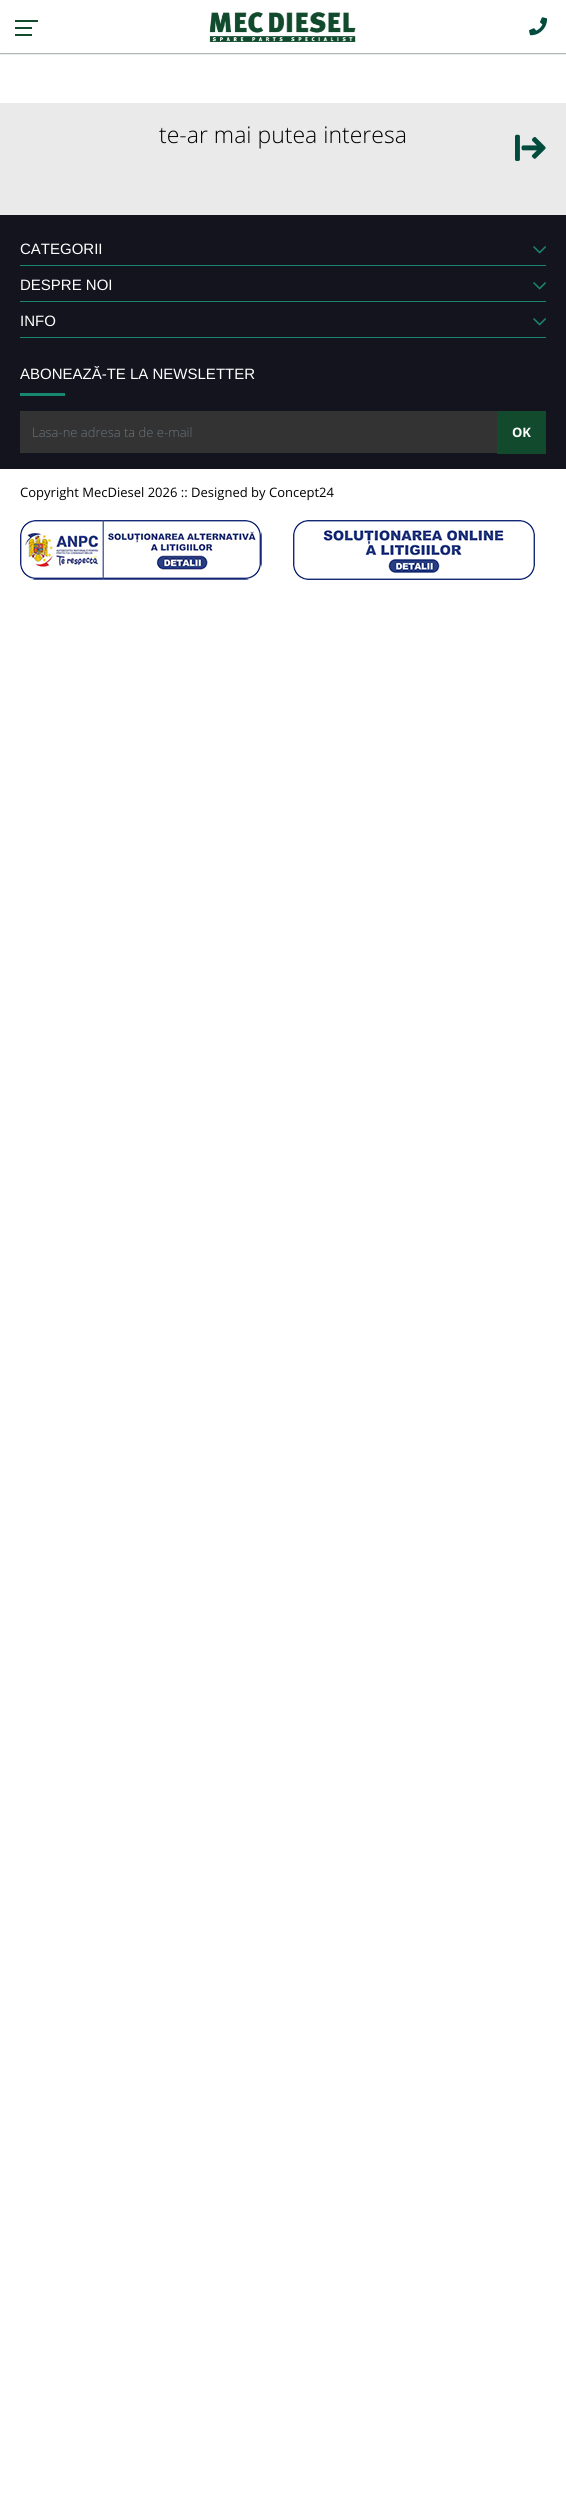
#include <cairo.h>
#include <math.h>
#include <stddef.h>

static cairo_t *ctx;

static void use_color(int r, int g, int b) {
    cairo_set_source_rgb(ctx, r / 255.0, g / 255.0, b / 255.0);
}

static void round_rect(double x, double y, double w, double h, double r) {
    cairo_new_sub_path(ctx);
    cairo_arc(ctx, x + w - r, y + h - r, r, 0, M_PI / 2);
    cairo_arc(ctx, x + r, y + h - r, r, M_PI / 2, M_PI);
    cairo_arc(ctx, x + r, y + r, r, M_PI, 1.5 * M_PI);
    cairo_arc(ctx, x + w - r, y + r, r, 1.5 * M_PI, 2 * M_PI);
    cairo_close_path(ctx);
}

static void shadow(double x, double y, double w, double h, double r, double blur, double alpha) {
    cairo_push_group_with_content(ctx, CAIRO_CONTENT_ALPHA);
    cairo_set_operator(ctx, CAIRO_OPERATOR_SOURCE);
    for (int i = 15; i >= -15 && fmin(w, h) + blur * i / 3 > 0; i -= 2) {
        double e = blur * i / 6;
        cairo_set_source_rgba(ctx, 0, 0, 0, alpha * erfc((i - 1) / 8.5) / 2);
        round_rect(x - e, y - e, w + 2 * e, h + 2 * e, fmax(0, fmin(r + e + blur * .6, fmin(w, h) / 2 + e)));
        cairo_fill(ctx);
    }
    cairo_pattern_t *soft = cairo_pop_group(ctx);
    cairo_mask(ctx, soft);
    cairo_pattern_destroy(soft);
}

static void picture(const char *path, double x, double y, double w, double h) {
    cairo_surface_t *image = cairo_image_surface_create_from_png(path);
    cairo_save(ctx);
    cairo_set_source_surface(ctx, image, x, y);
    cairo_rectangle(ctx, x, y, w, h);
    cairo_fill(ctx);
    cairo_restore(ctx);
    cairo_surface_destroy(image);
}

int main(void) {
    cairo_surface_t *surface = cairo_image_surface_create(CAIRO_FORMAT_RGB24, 566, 2516);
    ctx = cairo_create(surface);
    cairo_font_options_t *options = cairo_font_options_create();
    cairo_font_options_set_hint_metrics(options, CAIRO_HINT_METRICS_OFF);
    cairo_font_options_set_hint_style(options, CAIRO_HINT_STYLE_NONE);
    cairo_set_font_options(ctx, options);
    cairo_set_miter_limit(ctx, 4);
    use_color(255, 255, 255);
    cairo_paint(ctx);
    use_color(0, 0, 0);
    shadow(0, 0, 566, 54, 0, 0.5, 0.3);
    use_color(255, 255, 255);
    cairo_rectangle(ctx, 0, 0, 566, 53);
    cairo_fill(ctx);
    use_color(175, 184, 185);
    cairo_rectangle(ctx, 0, 53, 566, 1);
    cairo_fill(ctx);
    use_color(17, 74, 44);
    cairo_rectangle(ctx, 15, 27, 17, 2);
    cairo_fill(ctx);
    cairo_rectangle(ctx, 15, 20, 23, 2);
    cairo_fill(ctx);
    cairo_rectangle(ctx, 15, 34, 17, 2);
    cairo_fill(ctx);
    picture("img1.png", 209, 12, 147, 30);
    picture("img2.png", 529, 17, 18, 19);
    use_color(234, 234, 235);
    cairo_rectangle(ctx, 0, 103, 566, 112);
    cairo_fill(ctx);
    cairo_select_font_face(ctx, "Open Sans Light", CAIRO_FONT_SLANT_NORMAL, CAIRO_FONT_WEIGHT_NORMAL);
    cairo_set_font_size(ctx, 23);
    use_color(0, 0, 0);
    cairo_move_to(ctx, 159, 143);
    cairo_show_text(ctx, "te-ar mai putea interesa");
    picture("img3.png", 515, 134, 31, 27);
    use_color(20, 20, 30);
    cairo_rectangle(ctx, 0, 215, 566, 254);
    cairo_fill(ctx);
    use_color(24, 135, 113);
    cairo_rectangle(ctx, 20, 265, 526, 1);
    cairo_fill(ctx);
    cairo_select_font_face(ctx, "Liberation Sans", CAIRO_FONT_SLANT_NORMAL, CAIRO_FONT_WEIGHT_NORMAL);
    cairo_set_font_size(ctx, 15);
    use_color(255, 255, 255);
    cairo_move_to(ctx, 20, 254);
    cairo_show_text(ctx, "CATEGORII");
    picture("img4.png", 533, 246, 13, 8);
    use_color(24, 135, 113);
    cairo_rectangle(ctx, 20, 301, 526, 1);
    cairo_fill(ctx);
    use_color(255, 255, 255);
    cairo_move_to(ctx, 20, 290);
    cairo_show_text(ctx, "DESPRE NOI");
    picture("img4.png", 533, 282, 13, 8);
    use_color(24, 135, 113);
    cairo_rectangle(ctx, 20, 337, 526, 1);
    cairo_fill(ctx);
    use_color(255, 255, 255);
    cairo_move_to(ctx, 20, 326);
    cairo_show_text(ctx, "INFO");
    picture("img4.png", 533, 318, 13, 8);
    cairo_move_to(ctx, 20, 379);
    cairo_show_text(ctx, "ABONEAZĂ-TE LA NEWSLETTER");
    use_color(24, 135, 113);
    cairo_rectangle(ctx, 20, 393, 45, 3);
    cairo_fill(ctx);
    use_color(51, 51, 51);
    cairo_rectangle(ctx, 20, 411, 477, 42);
    cairo_fill(ctx);
    cairo_select_font_face(ctx, "Open Sans Light", CAIRO_FONT_SLANT_NORMAL, CAIRO_FONT_WEIGHT_NORMAL);
    cairo_set_font_size(ctx, 13);
    use_color(108, 117, 125);
    cairo_move_to(ctx, 32, 437);
    cairo_show_text(ctx, "Lasa-ne adresa ta de e-mail");
    use_color(17, 74, 44);
    cairo_rectangle(ctx, 497, 411, 49, 43);
    cairo_fill(ctx);
    cairo_select_font_face(ctx, "Open Sans", CAIRO_FONT_SLANT_NORMAL, CAIRO_FONT_WEIGHT_BOLD);
    use_color(255, 255, 255);
    cairo_move_to(ctx, 512, 437);
    cairo_show_text(ctx, "OK");
    cairo_select_font_face(ctx, "Open Sans", CAIRO_FONT_SLANT_NORMAL, CAIRO_FONT_WEIGHT_NORMAL);
    use_color(0, 0, 0);
    cairo_move_to(ctx, 20, 497);
    cairo_show_text(ctx, "Copyright MecDiesel 2026 :: Designed by Concept24");
    picture("img5.png", 20, 520, 242, 60);
    picture("img6.png", 293, 520, 242, 60);
    cairo_surface_write_to_png(surface, "result.png");
    cairo_font_options_destroy(options);
    cairo_destroy(ctx);
    cairo_surface_destroy(surface);
    return 0;
}
